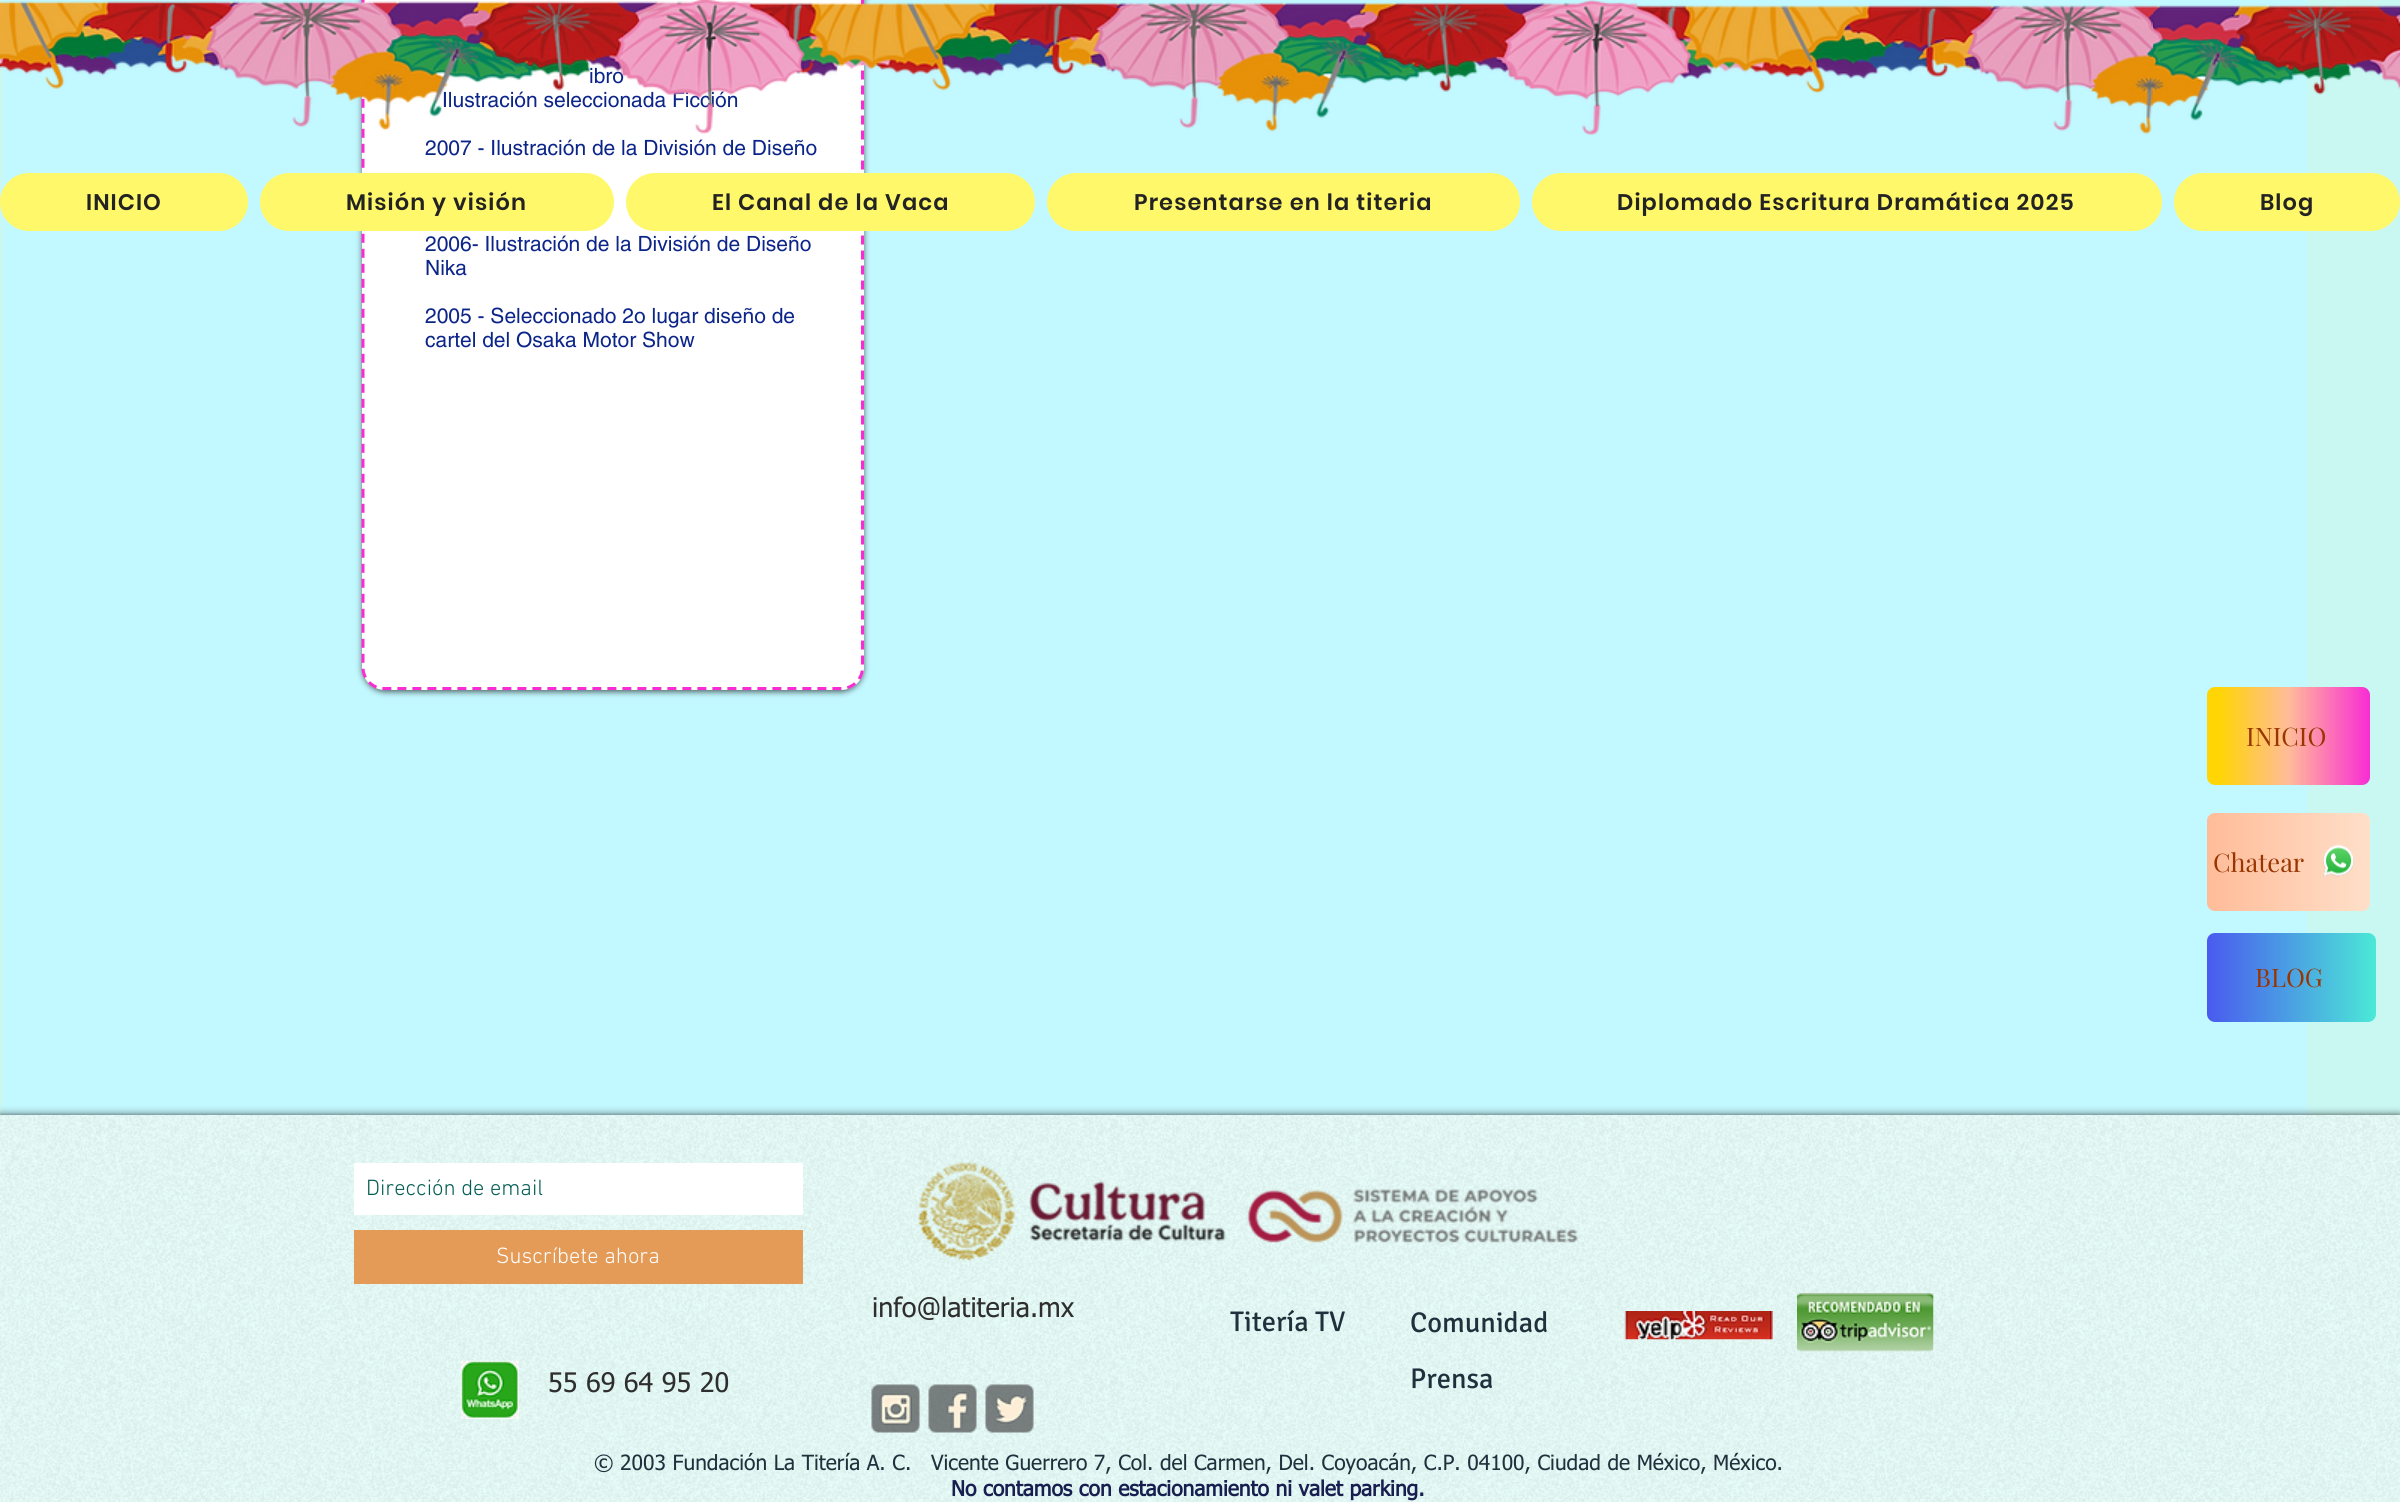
#include <cairo.h>
#include <math.h>
#include <stddef.h>

static cairo_t *ctx;

static void use_color(int r, int g, int b) {
    cairo_set_source_rgb(ctx, r / 255.0, g / 255.0, b / 255.0);
}

static void spaced_text(double x, double y, const char *s, double letter, double word) {
    cairo_move_to(ctx, x, y);
    while (*s) {
        char ch[5] = {0};
        int n = 0;
        do ch[n++] = *s++; while ((*s & 0xC0) == 0x80);
        cairo_show_text(ctx, ch);
        cairo_rel_move_to(ctx, letter + word * (*ch == ' '), 0);
    }
}

static void round_rect(double x, double y, double w, double h, double r) {
    cairo_new_sub_path(ctx);
    cairo_arc(ctx, x + w - r, y + h - r, r, 0, M_PI / 2);
    cairo_arc(ctx, x + r, y + h - r, r, M_PI / 2, M_PI);
    cairo_arc(ctx, x + r, y + r, r, M_PI, 1.5 * M_PI);
    cairo_arc(ctx, x + w - r, y + r, r, 1.5 * M_PI, 2 * M_PI);
    cairo_close_path(ctx);
}

static void shadow(double x, double y, double w, double h, double r, double blur, double alpha) {
    cairo_push_group_with_content(ctx, CAIRO_CONTENT_ALPHA);
    cairo_set_operator(ctx, CAIRO_OPERATOR_SOURCE);
    for (int i = 15; i >= -15 && fmin(w, h) + blur * i / 3 > 0; i -= 2) {
        double e = blur * i / 6;
        cairo_set_source_rgba(ctx, 0, 0, 0, alpha * erfc((i - 1) / 8.5) / 2);
        round_rect(x - e, y - e, w + 2 * e, h + 2 * e, fmax(0, fmin(r + e + blur * .6, fmin(w, h) / 2 + e)));
        cairo_fill(ctx);
    }
    cairo_pattern_t *soft = cairo_pop_group(ctx);
    cairo_mask(ctx, soft);
    cairo_pattern_destroy(soft);
}

static void picture(const char *path, double x, double y, double w, double h) {
    cairo_surface_t *image = cairo_image_surface_create_from_png(path);
    cairo_save(ctx);
    cairo_set_source_surface(ctx, image, x, y);
    cairo_rectangle(ctx, x, y, w, h);
    cairo_fill(ctx);
    cairo_restore(ctx);
    cairo_surface_destroy(image);
}

int main(void) {
    cairo_surface_t *surface = cairo_image_surface_create(CAIRO_FORMAT_RGB24, 2400, 1502);
    ctx = cairo_create(surface);
    cairo_font_options_t *options = cairo_font_options_create();
    cairo_font_options_set_hint_metrics(options, CAIRO_HINT_METRICS_OFF);
    cairo_font_options_set_hint_style(options, CAIRO_HINT_STYLE_NONE);
    cairo_set_font_options(ctx, options);
    cairo_set_miter_limit(ctx, 4);
    cairo_pattern_t *gradient;
    use_color(201, 248, 243);
    cairo_paint(ctx);
    use_color(194, 248, 255);
    cairo_rectangle(ctx, 3, 0, 2304, 1115);
    cairo_fill(ctx);
    use_color(0, 0, 0);
    shadow(362, -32, 502, 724, 23, 3, 0.6);
    use_color(255, 255, 255);
    round_rect(362, -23, 502, 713, 23);
    cairo_fill(ctx);
    cairo_new_path(ctx);
    cairo_move_to(ctx, 384, -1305);
    cairo_line_to(ctx, 841.5, -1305);
    cairo_curve_to(ctx, 853, -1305, 862.5, -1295.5, 862.5, -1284);
    cairo_line_to(ctx, 862.5, 667.5);
    cairo_curve_to(ctx, 862.5, 679, 853, 688.5, 841.5, 688.5);
    cairo_line_to(ctx, 384, 688.5);
    cairo_curve_to(ctx, 372.5, 688.5, 363, 679, 363, 667.5);
    cairo_line_to(ctx, 363, -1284);
    cairo_curve_to(ctx, 363, -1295.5, 372.5, -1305, 384, -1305);
    cairo_close_path(ctx);
    use_color(249, 44, 212);
    cairo_set_line_width(ctx, 3);
    cairo_set_dash(ctx, (double[]){9, 6}, 2, 0);
    cairo_stroke(ctx);
    cairo_select_font_face(ctx, "helvetica", CAIRO_FONT_SLANT_NORMAL, CAIRO_FONT_WEIGHT_NORMAL);
    cairo_set_font_size(ctx, 21);
    use_color(12, 37, 137);
    cairo_move_to(ctx, 589, 83);
    cairo_show_text(ctx, "ibro");
    cairo_move_to(ctx, 442, 107);
    cairo_show_text(ctx, "Ilustración seleccionada Ficción");
    cairo_move_to(ctx, 425, 155);
    cairo_show_text(ctx, "2007 - Ilustración de la División de Diseño");
    cairo_move_to(ctx, 425, 251);
    cairo_show_text(ctx, "2006- Ilustración de la División de Diseño");
    cairo_move_to(ctx, 425, 275);
    cairo_show_text(ctx, "Nika");
    cairo_move_to(ctx, 425, 323);
    cairo_show_text(ctx, "2005 - Seleccionado 2o lugar diseño de");
    cairo_move_to(ctx, 425, 347);
    cairo_show_text(ctx, "cartel del Osaka Motor Show");
    picture("img1.png", 0, 0, 2400, 135);
    use_color(255, 248, 107);
    round_rect(0, 173, 248, 58, 29);
    cairo_fill(ctx);
    cairo_select_font_face(ctx, "Poppins SemiBold", CAIRO_FONT_SLANT_NORMAL, CAIRO_FONT_WEIGHT_NORMAL);
    cairo_set_font_size(ctx, 22.5);
    use_color(36, 35, 35);
    spaced_text(86, 210, "INICIO", 1.1, 0);
    use_color(255, 248, 107);
    round_rect(260, 173, 354, 58, 29);
    cairo_fill(ctx);
    use_color(36, 35, 35);
    spaced_text(346, 210, "Misión y visión", 1.1, 0);
    use_color(255, 248, 107);
    round_rect(626, 173, 409, 58, 29);
    cairo_fill(ctx);
    use_color(36, 35, 35);
    spaced_text(712, 210, "El Canal de la Vaca", 1.1, 0);
    use_color(255, 248, 107);
    round_rect(1047, 173, 473, 58, 29);
    cairo_fill(ctx);
    use_color(36, 35, 35);
    spaced_text(1134, 210, "Presentarse en la titeria", 1.1, 0);
    use_color(255, 248, 107);
    round_rect(1532, 173, 630, 58, 29);
    cairo_fill(ctx);
    use_color(36, 35, 35);
    spaced_text(1617, 210, "Diplomado Escritura Dramática 2025", 1.1, 0);
    use_color(255, 248, 107);
    round_rect(2174, 173, 226, 58, 29);
    cairo_fill(ctx);
    use_color(36, 35, 35);
    spaced_text(2260, 210, "Blog", 1.1, 0);
    gradient = cairo_pattern_create_linear(2207, 736, 2370, 736);
    cairo_pattern_add_color_stop_rgba(gradient, 0.08, 1, 0.835, 0.02, 1);
    cairo_pattern_add_color_stop_rgba(gradient, 0.5, 1, 0.737, 0.6, 1);
    cairo_pattern_add_color_stop_rgba(gradient, 1, 0.976, 0.173, 0.831, 1);
    cairo_set_source(ctx, gradient);
    cairo_pattern_destroy(gradient);
    round_rect(2207, 687, 163, 98, 8);
    cairo_fill(ctx);
    cairo_select_font_face(ctx, "Playfair Display", CAIRO_FONT_SLANT_NORMAL, CAIRO_FONT_WEIGHT_NORMAL);
    cairo_set_font_size(ctx, 25.5);
    use_color(153, 53, 0);
    cairo_move_to(ctx, 2246, 746);
    cairo_show_text(ctx, "INICIO");
    gradient = cairo_pattern_create_linear(2207, 862, 2370, 862);
    cairo_pattern_add_color_stop_rgba(gradient, 0, 1, 0.737, 0.6, 1);
    cairo_pattern_add_color_stop_rgba(gradient, 1, 1, 0.875, 0.788, 1);
    cairo_set_source(ctx, gradient);
    cairo_pattern_destroy(gradient);
    round_rect(2207, 813, 163, 98, 8);
    cairo_fill(ctx);
    use_color(153, 53, 0);
    cairo_move_to(ctx, 2213, 872);
    cairo_show_text(ctx, "Chatear");
    picture("img2.png", 2323, 844, 31, 33);
    gradient = cairo_pattern_create_linear(2207, 977, 2376, 977);
    cairo_pattern_add_color_stop_rgba(gradient, 0, 0.29, 0.353, 0.937, 1);
    cairo_pattern_add_color_stop_rgba(gradient, 0.99, 0.294, 0.906, 0.843, 1);
    cairo_set_source(ctx, gradient);
    cairo_pattern_destroy(gradient);
    round_rect(2207, 933, 169, 89, 8);
    cairo_fill(ctx);
    use_color(153, 53, 0);
    cairo_move_to(ctx, 2255, 987);
    cairo_show_text(ctx, "BLOG");
    use_color(0, 0, 0);
    shadow(0, 1115, 2400, 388, 0, 4, 0.7);
    use_color(231, 253, 249);
    cairo_rectangle(ctx, 0, 1115, 2400, 387);
    cairo_fill(ctx);
    picture("img3.png", 0, 1114, 2400, 388);
    use_color(255, 255, 255);
    cairo_rectangle(ctx, 354, 1163, 449, 52);
    cairo_fill(ctx);
    cairo_select_font_face(ctx, "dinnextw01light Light", CAIRO_FONT_SLANT_NORMAL, CAIRO_FONT_WEIGHT_NORMAL);
    cairo_set_font_size(ctx, 22.5);
    use_color(3, 93, 84);
    cairo_move_to(ctx, 366, 1195);
    cairo_show_text(ctx, "Dirección de email");
    use_color(227, 155, 87);
    cairo_rectangle(ctx, 354, 1230, 449, 54);
    cairo_fill(ctx);
    use_color(255, 255, 255);
    cairo_move_to(ctx, 496, 1263);
    cairo_show_text(ctx, "Suscríbete ahora");
    picture("img4.png", 917, 1162, 662, 99);
    cairo_select_font_face(ctx, "tahoma", CAIRO_FONT_SLANT_NORMAL, CAIRO_FONT_WEIGHT_NORMAL);
    cairo_set_font_size(ctx, 27);
    use_color(47, 46, 46);
    cairo_move_to(ctx, 872, 1317);
    cairo_show_text(ctx, "info@latiteria.mx");
    cairo_select_font_face(ctx, "Signika", CAIRO_FONT_SLANT_NORMAL, CAIRO_FONT_WEIGHT_NORMAL);
    cairo_set_font_size(ctx, 28.5);
    use_color(32, 48, 60);
    cairo_move_to(ctx, 1230, 1331);
    cairo_show_text(ctx, "Titería TV");
    cairo_move_to(ctx, 1410, 1332);
    cairo_show_text(ctx, "Comunidad");
    picture("img5.png", 1624, 1311, 149, 29);
    picture("img6.png", 1797, 1293, 137, 59);
    picture("img7.png", 460, 1360, 59, 59);
    cairo_select_font_face(ctx, "tahoma", CAIRO_FONT_SLANT_NORMAL, CAIRO_FONT_WEIGHT_NORMAL);
    cairo_set_font_size(ctx, 27);
    use_color(47, 46, 46);
    cairo_move_to(ctx, 548, 1392);
    cairo_show_text(ctx, "55 69 64 95 20");
    picture("img8.png", 871, 1384, 49, 49);
    picture("img9.png", 928, 1384, 49, 49);
    picture("img10.png", 985, 1384, 49, 49);
    cairo_select_font_face(ctx, "Signika", CAIRO_FONT_SLANT_NORMAL, CAIRO_FONT_WEIGHT_NORMAL);
    cairo_set_font_size(ctx, 28.5);
    use_color(32, 48, 60);
    cairo_move_to(ctx, 1410, 1388);
    cairo_show_text(ctx, "Prensa");
    cairo_select_font_face(ctx, "tahoma", CAIRO_FONT_SLANT_NORMAL, CAIRO_FONT_WEIGHT_NORMAL);
    cairo_set_font_size(ctx, 21);
    cairo_move_to(ctx, 594, 1470);
    cairo_show_text(ctx, "© 2003 Fundación La Titería A. C.   Vicente Guerrero 7, Col. del Carmen, Del. Coyoacán, C.P. 04100, Ciudad de México, México.");
    cairo_select_font_face(ctx, "tahoma", CAIRO_FONT_SLANT_NORMAL, CAIRO_FONT_WEIGHT_BOLD);
    use_color(24, 30, 79);
    cairo_move_to(ctx, 951, 1496);
    cairo_show_text(ctx, "No contamos con estacionamiento ni valet parking.");
    cairo_surface_write_to_png(surface, "result.png");
    cairo_font_options_destroy(options);
    cairo_destroy(ctx);
    cairo_surface_destroy(surface);
    return 0;
}
